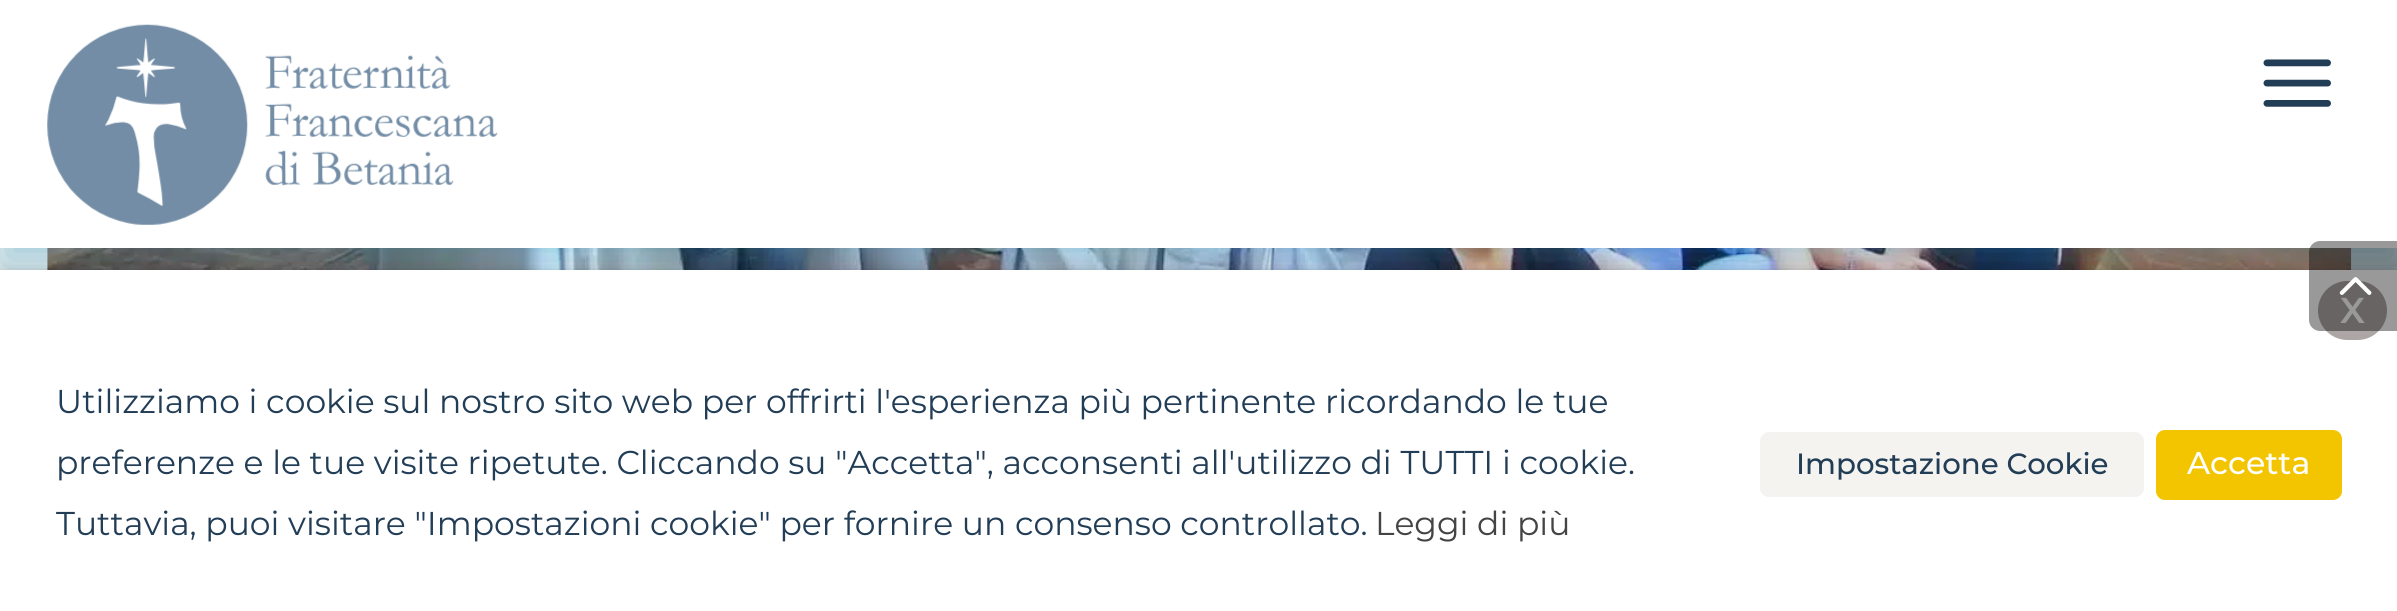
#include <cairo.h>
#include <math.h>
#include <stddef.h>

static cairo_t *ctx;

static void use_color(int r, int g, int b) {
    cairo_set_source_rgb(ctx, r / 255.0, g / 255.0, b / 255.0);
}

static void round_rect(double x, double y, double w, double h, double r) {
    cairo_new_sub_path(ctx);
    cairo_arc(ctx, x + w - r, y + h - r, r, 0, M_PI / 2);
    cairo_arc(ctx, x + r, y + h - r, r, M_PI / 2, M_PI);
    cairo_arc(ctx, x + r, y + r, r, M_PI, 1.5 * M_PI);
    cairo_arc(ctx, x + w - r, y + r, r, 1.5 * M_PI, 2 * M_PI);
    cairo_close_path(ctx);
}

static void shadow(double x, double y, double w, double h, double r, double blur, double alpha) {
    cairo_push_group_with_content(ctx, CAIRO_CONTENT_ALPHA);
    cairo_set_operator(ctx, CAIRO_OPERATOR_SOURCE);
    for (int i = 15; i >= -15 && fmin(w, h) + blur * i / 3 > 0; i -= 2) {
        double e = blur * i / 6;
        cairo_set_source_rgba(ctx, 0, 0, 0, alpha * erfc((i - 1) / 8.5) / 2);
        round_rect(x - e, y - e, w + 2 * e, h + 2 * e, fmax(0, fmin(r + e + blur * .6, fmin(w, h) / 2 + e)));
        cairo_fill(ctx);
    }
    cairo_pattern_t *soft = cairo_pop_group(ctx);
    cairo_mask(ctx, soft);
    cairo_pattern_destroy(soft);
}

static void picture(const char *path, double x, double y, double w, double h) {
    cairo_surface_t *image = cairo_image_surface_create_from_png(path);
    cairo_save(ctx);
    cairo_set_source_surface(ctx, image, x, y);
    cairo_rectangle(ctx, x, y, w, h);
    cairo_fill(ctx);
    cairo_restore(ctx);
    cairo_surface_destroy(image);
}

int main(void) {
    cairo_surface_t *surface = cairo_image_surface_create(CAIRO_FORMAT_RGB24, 2397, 611);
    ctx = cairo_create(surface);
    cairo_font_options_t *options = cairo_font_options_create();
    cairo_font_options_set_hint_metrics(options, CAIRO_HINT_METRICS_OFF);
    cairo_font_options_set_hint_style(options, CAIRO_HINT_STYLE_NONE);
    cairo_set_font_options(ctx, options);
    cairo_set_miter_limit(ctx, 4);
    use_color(244, 243, 240);
    cairo_paint(ctx);
    picture("img3.png", 47, 248, 2305, 22);
    use_color(30, 141, 185);
    shadow(0, 18, 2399, 248, 0, 27, 0.4);
    use_color(255, 255, 255);
    cairo_rectangle(ctx, 0, 0, 2397, 248);
    cairo_fill(ctx);
    picture("img1.png", 47, 24, 451, 201);
    picture("img2.png", 2263, 59, 68, 48);
    use_color(0, 0, 0);
    shadow(0, 281, 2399, 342, 0, 11, 0.5);
    use_color(255, 255, 255);
    cairo_rectangle(ctx, 0, 270, 2397, 341);
    cairo_fill(ctx);
    use_color(173, 166, 166);
    round_rect(2318, 281, 69, 59, 29.5);
    cairo_fill(ctx);
    cairo_select_font_face(ctx, "Montserrat SemiBold", CAIRO_FONT_SLANT_NORMAL, CAIRO_FONT_WEIGHT_NORMAL);
    cairo_set_font_size(ctx, 36);
    use_color(255, 255, 255);
    cairo_move_to(ctx, 2340, 323);
    cairo_show_text(ctx, "X");
    cairo_set_source_rgba(ctx, 0, 0, 0, 0.4);
    cairo_new_path(ctx);
    cairo_move_to(ctx, 2320, 241);
    cairo_line_to(ctx, 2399, 241);
    cairo_line_to(ctx, 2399, 331);
    cairo_line_to(ctx, 2320, 331);
    cairo_curve_to(ctx, 2314, 331, 2309, 326, 2309, 320);
    cairo_line_to(ctx, 2309, 252);
    cairo_curve_to(ctx, 2309, 246, 2314, 241, 2320, 241);
    cairo_close_path(ctx);
    cairo_fill(ctx);
    picture("img4.png", 2339, 277, 33, 18);
    cairo_select_font_face(ctx, "Montserrat", CAIRO_FONT_SLANT_NORMAL, CAIRO_FONT_WEIGHT_NORMAL);
    cairo_set_font_size(ctx, 33);
    use_color(34, 61, 86);
    cairo_move_to(ctx, 56, 413);
    cairo_show_text(ctx, "Utilizziamo i cookie sul nostro sito web per offrirti l'esperienza più pertinente ricordando le tue");
    cairo_move_to(ctx, 56, 474);
    cairo_show_text(ctx, "preferenze e le tue visite ripetute. Cliccando su \"Accetta\", acconsenti all'utilizzo di TUTTI i cookie.");
    cairo_move_to(ctx, 56, 535);
    cairo_show_text(ctx, "Tuttavia, puoi visitare \"Impostazioni cookie\" per fornire un consenso controllato.");
    use_color(68, 68, 68);
    cairo_move_to(ctx, 1375, 535);
    cairo_show_text(ctx, "Leggi di più");
    use_color(244, 243, 240);
    round_rect(1760, 432, 384, 65, 9);
    cairo_fill(ctx);
    cairo_select_font_face(ctx, "Montserrat Medium", CAIRO_FONT_SLANT_NORMAL, CAIRO_FONT_WEIGHT_NORMAL);
    cairo_set_font_size(ctx, 29.25);
    use_color(34, 61, 86);
    cairo_move_to(ctx, 1796, 474);
    cairo_show_text(ctx, "Impostazione Cookie");
    use_color(242, 197, 0);
    round_rect(2156, 430, 186, 70, 9);
    cairo_fill(ctx);
    cairo_set_font_size(ctx, 31.5);
    use_color(255, 255, 255);
    cairo_move_to(ctx, 2187, 474);
    cairo_show_text(ctx, "Accetta");
    cairo_surface_write_to_png(surface, "result.png");
    cairo_font_options_destroy(options);
    cairo_destroy(ctx);
    cairo_surface_destroy(surface);
    return 0;
}
